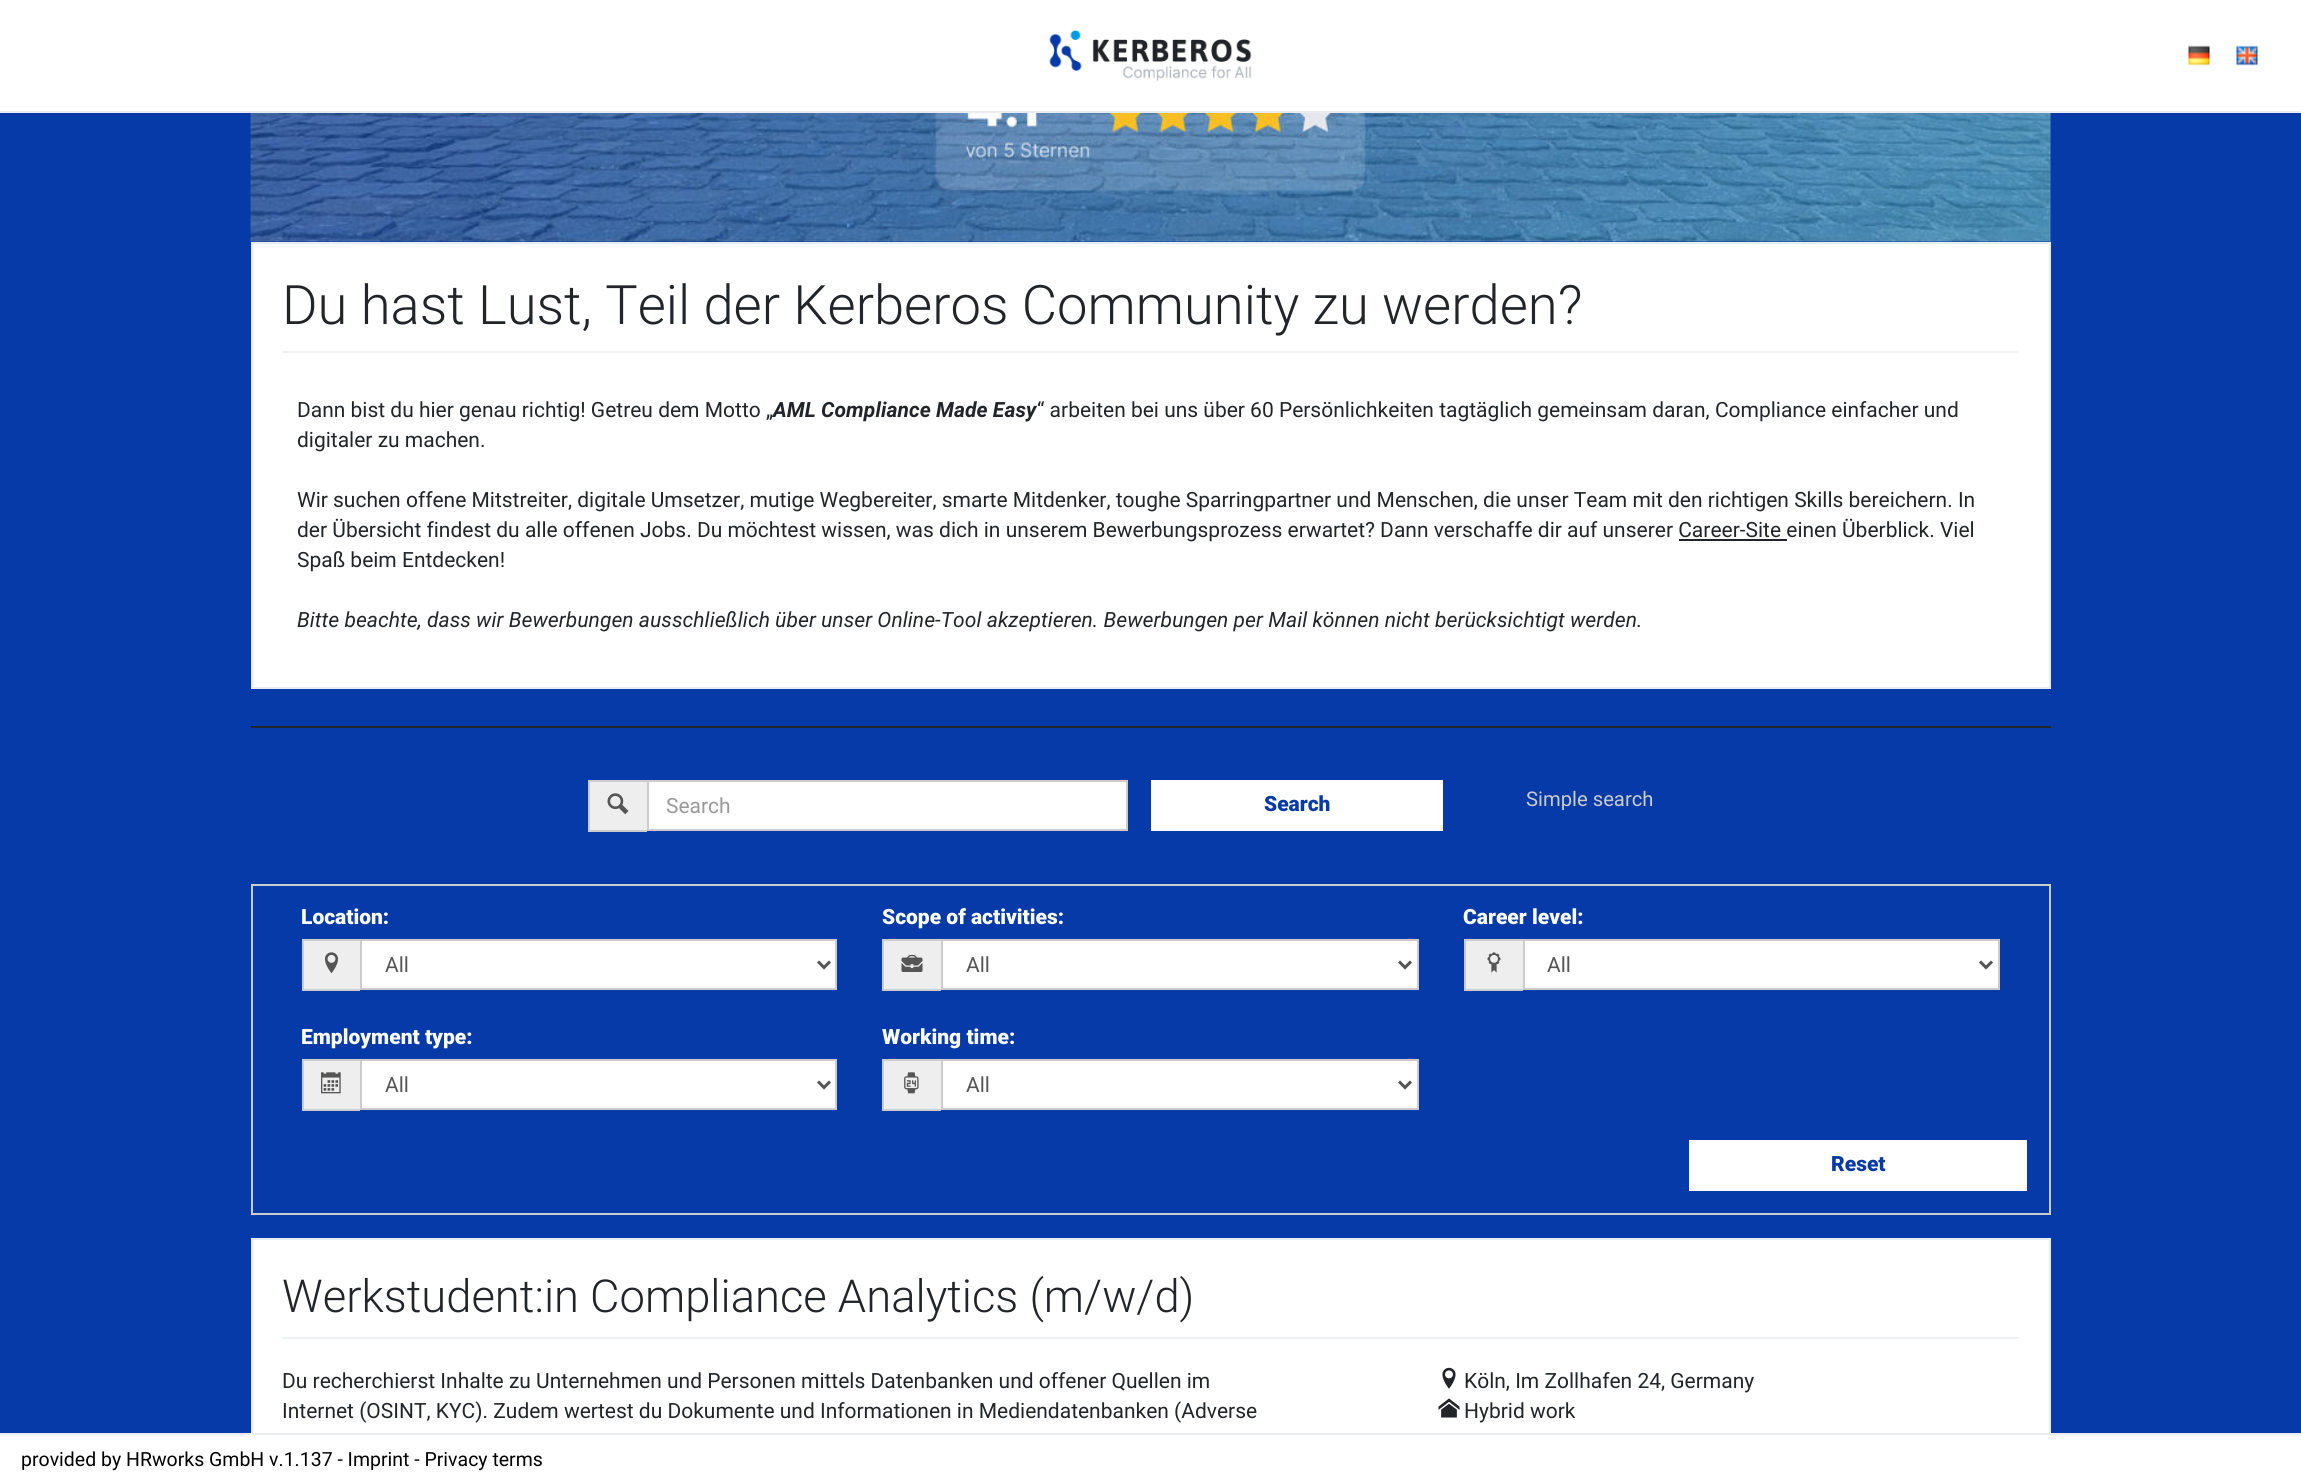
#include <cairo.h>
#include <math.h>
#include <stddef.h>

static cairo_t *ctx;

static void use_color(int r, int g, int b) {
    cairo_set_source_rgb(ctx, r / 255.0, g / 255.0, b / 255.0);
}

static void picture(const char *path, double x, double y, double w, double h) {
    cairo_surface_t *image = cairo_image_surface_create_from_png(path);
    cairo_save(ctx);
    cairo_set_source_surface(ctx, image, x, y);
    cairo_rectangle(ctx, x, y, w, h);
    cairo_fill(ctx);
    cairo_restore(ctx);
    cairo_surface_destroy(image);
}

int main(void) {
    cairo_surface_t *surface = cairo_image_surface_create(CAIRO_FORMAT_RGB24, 2301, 1481);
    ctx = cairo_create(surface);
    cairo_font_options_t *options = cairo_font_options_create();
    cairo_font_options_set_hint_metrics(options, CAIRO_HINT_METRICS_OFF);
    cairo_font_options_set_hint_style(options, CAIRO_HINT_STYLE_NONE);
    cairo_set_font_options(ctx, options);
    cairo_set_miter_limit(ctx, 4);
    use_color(6, 58, 168);
    cairo_paint(ctx);
    use_color(255, 255, 255);
    cairo_rectangle(ctx, 0, 0, 2301, 111);
    cairo_fill(ctx);
    use_color(233, 236, 243);
    cairo_rectangle(ctx, 0, 111, 2301, 2);
    cairo_fill(ctx);
    picture("img1.png", 1049, 30, 203, 52);
    picture("img2.png", 2188, 45, 22, 21);
    picture("img3.png", 2236, 45, 22, 21);
    picture("img4.png", 250, 113, 1801, 129);
    use_color(255, 255, 255);
    cairo_rectangle(ctx, 252, 243, 1798, 445);
    cairo_fill_preserve(ctx);
    use_color(231, 236, 241);
    cairo_stroke(ctx);
    use_color(238, 241, 245);
    cairo_rectangle(ctx, 282, 351, 1737, 2);
    cairo_fill(ctx);
    cairo_select_font_face(ctx, "Roboto Light", CAIRO_FONT_SLANT_NORMAL, CAIRO_FONT_WEIGHT_NORMAL);
    cairo_set_font_size(ctx, 54.4);
    use_color(33, 37, 41);
    cairo_move_to(ctx, 282, 324);
    cairo_show_text(ctx, "Du hast Lust, Teil der Kerberos Community zu werden?");
    cairo_select_font_face(ctx, "Roboto", CAIRO_FONT_SLANT_NORMAL, CAIRO_FONT_WEIGHT_NORMAL);
    cairo_set_font_size(ctx, 21);
    cairo_move_to(ctx, 297, 417);
    cairo_show_text(ctx, "Dann bist du hier genau richtig! Getreu dem Motto „");
    cairo_select_font_face(ctx, "Roboto", CAIRO_FONT_SLANT_ITALIC, CAIRO_FONT_WEIGHT_BOLD);
    cairo_move_to(ctx, 773, 417);
    cairo_show_text(ctx, "AML Compliance Made Easy");
    cairo_select_font_face(ctx, "Roboto", CAIRO_FONT_SLANT_NORMAL, CAIRO_FONT_WEIGHT_NORMAL);
    cairo_move_to(ctx, 1037, 417);
    cairo_show_text(ctx, "“ arbeiten bei uns über 60 Persönlichkeiten tagtäglich gemeinsam daran, Compliance einfacher und");
    cairo_move_to(ctx, 297, 447);
    cairo_show_text(ctx, "digitaler zu machen.");
    cairo_move_to(ctx, 297, 507);
    cairo_show_text(ctx, "Wir suchen offene Mitstreiter, digitale Umsetzer, mutige Wegbereiter, smarte Mitdenker, toughe Sparringpartner und Menschen, die unser Team mit den richtigen Skills bereichern. In");
    cairo_move_to(ctx, 297, 537);
    cairo_show_text(ctx, "der Übersicht findest du alle offenen Jobs. Du möchtest wissen, was dich in unserem Bewerbungsprozess erwartet? Dann verschaffe dir auf unserer Career-Site einen Überblick. Viel");
    cairo_rectangle(ctx, 1679, 539, 108, 2);
    cairo_fill(ctx);
    cairo_move_to(ctx, 297, 567);
    cairo_show_text(ctx, "Spaß beim Entdecken!");
    cairo_select_font_face(ctx, "Roboto", CAIRO_FONT_SLANT_ITALIC, CAIRO_FONT_WEIGHT_NORMAL);
    cairo_move_to(ctx, 297, 627);
    cairo_show_text(ctx, "Bitte beachte, dass wir Bewerbungen ausschließlich über unser Online-Tool akzeptieren. Bewerbungen per Mail können nicht berücksichtigt werden.");
    cairo_rectangle(ctx, 251, 726, 1800, 2);
    cairo_fill(ctx);
    use_color(238, 238, 238);
    cairo_rectangle(ctx, 590, 782, 57, 48);
    cairo_fill(ctx);
    use_color(204, 204, 204);
    cairo_rectangle(ctx, 588, 780, 59, 2);
    cairo_fill(ctx);
    cairo_rectangle(ctx, 588, 830, 59, 2);
    cairo_fill(ctx);
    cairo_rectangle(ctx, 588, 780, 2, 51);
    cairo_fill(ctx);
    picture("img5.png", 607, 793, 22, 22);
    use_color(255, 255, 255);
    cairo_rectangle(ctx, 648, 781, 479, 49);
    cairo_fill_preserve(ctx);
    use_color(204, 204, 204);
    cairo_stroke(ctx);
    cairo_select_font_face(ctx, "Roboto", CAIRO_FONT_SLANT_NORMAL, CAIRO_FONT_WEIGHT_NORMAL);
    use_color(153, 153, 153);
    cairo_move_to(ctx, 666, 813);
    cairo_show_text(ctx, "Search");
    use_color(255, 255, 255);
    cairo_rectangle(ctx, 1151, 780, 292, 51);
    cairo_fill(ctx);
    cairo_select_font_face(ctx, "Roboto Black", CAIRO_FONT_SLANT_NORMAL, CAIRO_FONT_WEIGHT_NORMAL);
    use_color(6, 58, 168);
    cairo_move_to(ctx, 1264, 811);
    cairo_show_text(ctx, "Search");
    cairo_select_font_face(ctx, "Roboto", CAIRO_FONT_SLANT_NORMAL, CAIRO_FONT_WEIGHT_NORMAL);
    cairo_set_font_size(ctx, 20.25);
    use_color(204, 204, 204);
    cairo_move_to(ctx, 1526, 806);
    cairo_show_text(ctx, "Simple search");
    cairo_rectangle(ctx, 252, 885, 1798, 329);
    cairo_stroke(ctx);
    cairo_select_font_face(ctx, "Roboto Black", CAIRO_FONT_SLANT_NORMAL, CAIRO_FONT_WEIGHT_NORMAL);
    cairo_set_font_size(ctx, 21);
    use_color(255, 255, 255);
    cairo_move_to(ctx, 301, 924);
    cairo_show_text(ctx, "Location:");
    use_color(238, 238, 238);
    cairo_rectangle(ctx, 304, 941, 56, 48);
    cairo_fill(ctx);
    use_color(204, 204, 204);
    cairo_rectangle(ctx, 302, 939, 58, 2);
    cairo_fill(ctx);
    cairo_rectangle(ctx, 302, 989, 58, 2);
    cairo_fill(ctx);
    cairo_rectangle(ctx, 302, 939, 2, 51);
    cairo_fill(ctx);
    picture("img6.png", 324, 952, 15, 22);
    use_color(255, 255, 255);
    cairo_rectangle(ctx, 361, 940, 475, 49);
    cairo_fill_preserve(ctx);
    use_color(204, 204, 204);
    cairo_stroke(ctx);
    cairo_new_path(ctx);
    cairo_move_to(ctx, 818, 961.5);
    cairo_line_to(ctx, 824, 967.5);
    cairo_line_to(ctx, 830, 961.5);
    use_color(85, 85, 85);
    cairo_set_line_width(ctx, 3);
    cairo_stroke(ctx);
    cairo_select_font_face(ctx, "Roboto", CAIRO_FONT_SLANT_NORMAL, CAIRO_FONT_WEIGHT_NORMAL);
    cairo_move_to(ctx, 385, 972);
    cairo_show_text(ctx, "All");
    cairo_select_font_face(ctx, "Roboto Black", CAIRO_FONT_SLANT_NORMAL, CAIRO_FONT_WEIGHT_NORMAL);
    use_color(255, 255, 255);
    cairo_move_to(ctx, 882, 924);
    cairo_show_text(ctx, "Scope of activities:");
    use_color(238, 238, 238);
    cairo_rectangle(ctx, 884, 941, 57, 48);
    cairo_fill(ctx);
    use_color(204, 204, 204);
    cairo_rectangle(ctx, 882, 939, 59, 2);
    cairo_fill(ctx);
    cairo_rectangle(ctx, 882, 989, 59, 2);
    cairo_fill(ctx);
    cairo_rectangle(ctx, 882, 939, 2, 51);
    cairo_fill(ctx);
    picture("img7.png", 901, 954, 22, 18);
    use_color(255, 255, 255);
    cairo_rectangle(ctx, 942, 940, 476, 49);
    cairo_fill_preserve(ctx);
    use_color(204, 204, 204);
    cairo_set_line_width(ctx, 2);
    cairo_stroke(ctx);
    cairo_new_path(ctx);
    cairo_move_to(ctx, 1399, 961.5);
    cairo_line_to(ctx, 1405, 967.5);
    cairo_line_to(ctx, 1411, 961.5);
    use_color(85, 85, 85);
    cairo_set_line_width(ctx, 3);
    cairo_stroke(ctx);
    cairo_select_font_face(ctx, "Roboto", CAIRO_FONT_SLANT_NORMAL, CAIRO_FONT_WEIGHT_NORMAL);
    cairo_move_to(ctx, 966, 972);
    cairo_show_text(ctx, "All");
    cairo_select_font_face(ctx, "Roboto Black", CAIRO_FONT_SLANT_NORMAL, CAIRO_FONT_WEIGHT_NORMAL);
    use_color(255, 255, 255);
    cairo_move_to(ctx, 1463, 924);
    cairo_show_text(ctx, "Career level:");
    use_color(238, 238, 238);
    cairo_rectangle(ctx, 1466, 941, 57, 48);
    cairo_fill(ctx);
    use_color(204, 204, 204);
    cairo_rectangle(ctx, 1464, 939, 59, 2);
    cairo_fill(ctx);
    cairo_rectangle(ctx, 1464, 989, 59, 2);
    cairo_fill(ctx);
    cairo_rectangle(ctx, 1464, 939, 2, 51);
    cairo_fill(ctx);
    picture("img8.png", 1487, 952, 14, 21);
    use_color(255, 255, 255);
    cairo_rectangle(ctx, 1524, 940, 475, 49);
    cairo_fill_preserve(ctx);
    use_color(204, 204, 204);
    cairo_set_line_width(ctx, 2);
    cairo_stroke(ctx);
    cairo_new_path(ctx);
    cairo_move_to(ctx, 1980, 961.5);
    cairo_line_to(ctx, 1986, 967.5);
    cairo_line_to(ctx, 1992, 961.5);
    use_color(85, 85, 85);
    cairo_set_line_width(ctx, 3);
    cairo_stroke(ctx);
    cairo_select_font_face(ctx, "Roboto", CAIRO_FONT_SLANT_NORMAL, CAIRO_FONT_WEIGHT_NORMAL);
    cairo_move_to(ctx, 1547, 972);
    cairo_show_text(ctx, "All");
    cairo_select_font_face(ctx, "Roboto Black", CAIRO_FONT_SLANT_NORMAL, CAIRO_FONT_WEIGHT_NORMAL);
    use_color(255, 255, 255);
    cairo_move_to(ctx, 301, 1044);
    cairo_show_text(ctx, "Employment type:");
    use_color(238, 238, 238);
    cairo_rectangle(ctx, 304, 1061, 56, 48);
    cairo_fill(ctx);
    use_color(204, 204, 204);
    cairo_rectangle(ctx, 302, 1059, 58, 2);
    cairo_fill(ctx);
    cairo_rectangle(ctx, 302, 1109, 58, 2);
    cairo_fill(ctx);
    cairo_rectangle(ctx, 302, 1059, 2, 51);
    cairo_fill(ctx);
    picture("img9.png", 321, 1072, 20, 22);
    use_color(255, 255, 255);
    cairo_rectangle(ctx, 361, 1060, 475, 49);
    cairo_fill_preserve(ctx);
    use_color(204, 204, 204);
    cairo_set_line_width(ctx, 2);
    cairo_stroke(ctx);
    cairo_new_path(ctx);
    cairo_move_to(ctx, 818, 1081.5);
    cairo_line_to(ctx, 824, 1087.5);
    cairo_line_to(ctx, 830, 1081.5);
    use_color(85, 85, 85);
    cairo_set_line_width(ctx, 3);
    cairo_stroke(ctx);
    cairo_select_font_face(ctx, "Roboto", CAIRO_FONT_SLANT_NORMAL, CAIRO_FONT_WEIGHT_NORMAL);
    cairo_move_to(ctx, 385, 1092);
    cairo_show_text(ctx, "All");
    cairo_select_font_face(ctx, "Roboto Black", CAIRO_FONT_SLANT_NORMAL, CAIRO_FONT_WEIGHT_NORMAL);
    use_color(255, 255, 255);
    cairo_move_to(ctx, 882, 1044);
    cairo_show_text(ctx, "Working time:");
    use_color(238, 238, 238);
    cairo_rectangle(ctx, 884, 1061, 57, 48);
    cairo_fill(ctx);
    use_color(204, 204, 204);
    cairo_rectangle(ctx, 882, 1059, 59, 2);
    cairo_fill(ctx);
    cairo_rectangle(ctx, 882, 1109, 59, 2);
    cairo_fill(ctx);
    cairo_rectangle(ctx, 882, 1059, 2, 51);
    cairo_fill(ctx);
    picture("img10.png", 904, 1072, 15, 22);
    use_color(255, 255, 255);
    cairo_rectangle(ctx, 942, 1060, 476, 49);
    cairo_fill_preserve(ctx);
    use_color(204, 204, 204);
    cairo_set_line_width(ctx, 2);
    cairo_stroke(ctx);
    cairo_new_path(ctx);
    cairo_move_to(ctx, 1399, 1081.5);
    cairo_line_to(ctx, 1405, 1087.5);
    cairo_line_to(ctx, 1411, 1081.5);
    use_color(85, 85, 85);
    cairo_set_line_width(ctx, 3);
    cairo_stroke(ctx);
    cairo_select_font_face(ctx, "Roboto", CAIRO_FONT_SLANT_NORMAL, CAIRO_FONT_WEIGHT_NORMAL);
    cairo_move_to(ctx, 966, 1092);
    cairo_show_text(ctx, "All");
    use_color(255, 255, 255);
    cairo_rectangle(ctx, 1689, 1140, 338, 51);
    cairo_fill(ctx);
    cairo_select_font_face(ctx, "Roboto Black", CAIRO_FONT_SLANT_NORMAL, CAIRO_FONT_WEIGHT_NORMAL);
    use_color(6, 58, 168);
    cairo_move_to(ctx, 1831, 1171);
    cairo_show_text(ctx, "Reset");
    use_color(255, 255, 255);
    cairo_rectangle(ctx, 253, 1240, 1796, 193);
    cairo_fill(ctx);
    cairo_rectangle(ctx, 252, 1239, 1798, 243);
    use_color(231, 236, 241);
    cairo_set_line_width(ctx, 2);
    cairo_stroke(ctx);
    use_color(238, 241, 245);
    cairo_rectangle(ctx, 282, 1337, 1737, 2);
    cairo_fill(ctx);
    cairo_select_font_face(ctx, "Roboto Light", CAIRO_FONT_SLANT_NORMAL, CAIRO_FONT_WEIGHT_NORMAL);
    cairo_set_font_size(ctx, 45.4);
    use_color(33, 37, 41);
    cairo_move_to(ctx, 282, 1312);
    cairo_show_text(ctx, "Werkstudent:in Compliance Analytics (m/w/d)");
    cairo_select_font_face(ctx, "Roboto", CAIRO_FONT_SLANT_NORMAL, CAIRO_FONT_WEIGHT_NORMAL);
    cairo_set_font_size(ctx, 21);
    cairo_move_to(ctx, 282, 1388);
    cairo_show_text(ctx, "Du recherchierst Inhalte zu Unternehmen und Personen mittels Datenbanken und offener Quellen im");
    cairo_move_to(ctx, 282, 1418);
    cairo_show_text(ctx, "Internet (OSINT, KYC). Zudem wertest du Dokumente und Informationen in Mediendatenbanken (Adverse");
    picture("img11.png", 1442, 1367, 14, 22);
    cairo_move_to(ctx, 1464, 1388);
    cairo_show_text(ctx, "Köln, Im Zollhafen 24, Germany");
    picture("img12.png", 1438, 1398, 22, 20);
    cairo_move_to(ctx, 1464, 1418);
    cairo_show_text(ctx, "Hybrid work");
    use_color(255, 255, 255);
    cairo_rectangle(ctx, 0, 1435, 2301, 46);
    cairo_fill(ctx);
    use_color(233, 236, 243);
    cairo_rectangle(ctx, 0, 1433, 2301, 2);
    cairo_fill(ctx);
    cairo_set_font_size(ctx, 19.5);
    use_color(0, 0, 0);
    cairo_move_to(ctx, 21, 1466);
    cairo_show_text(ctx, "provided by HRworks GmbH v.1.137 - Imprint - Privacy terms");
    cairo_surface_write_to_png(surface, "result.png");
    cairo_font_options_destroy(options);
    cairo_destroy(ctx);
    cairo_surface_destroy(surface);
    return 0;
}
